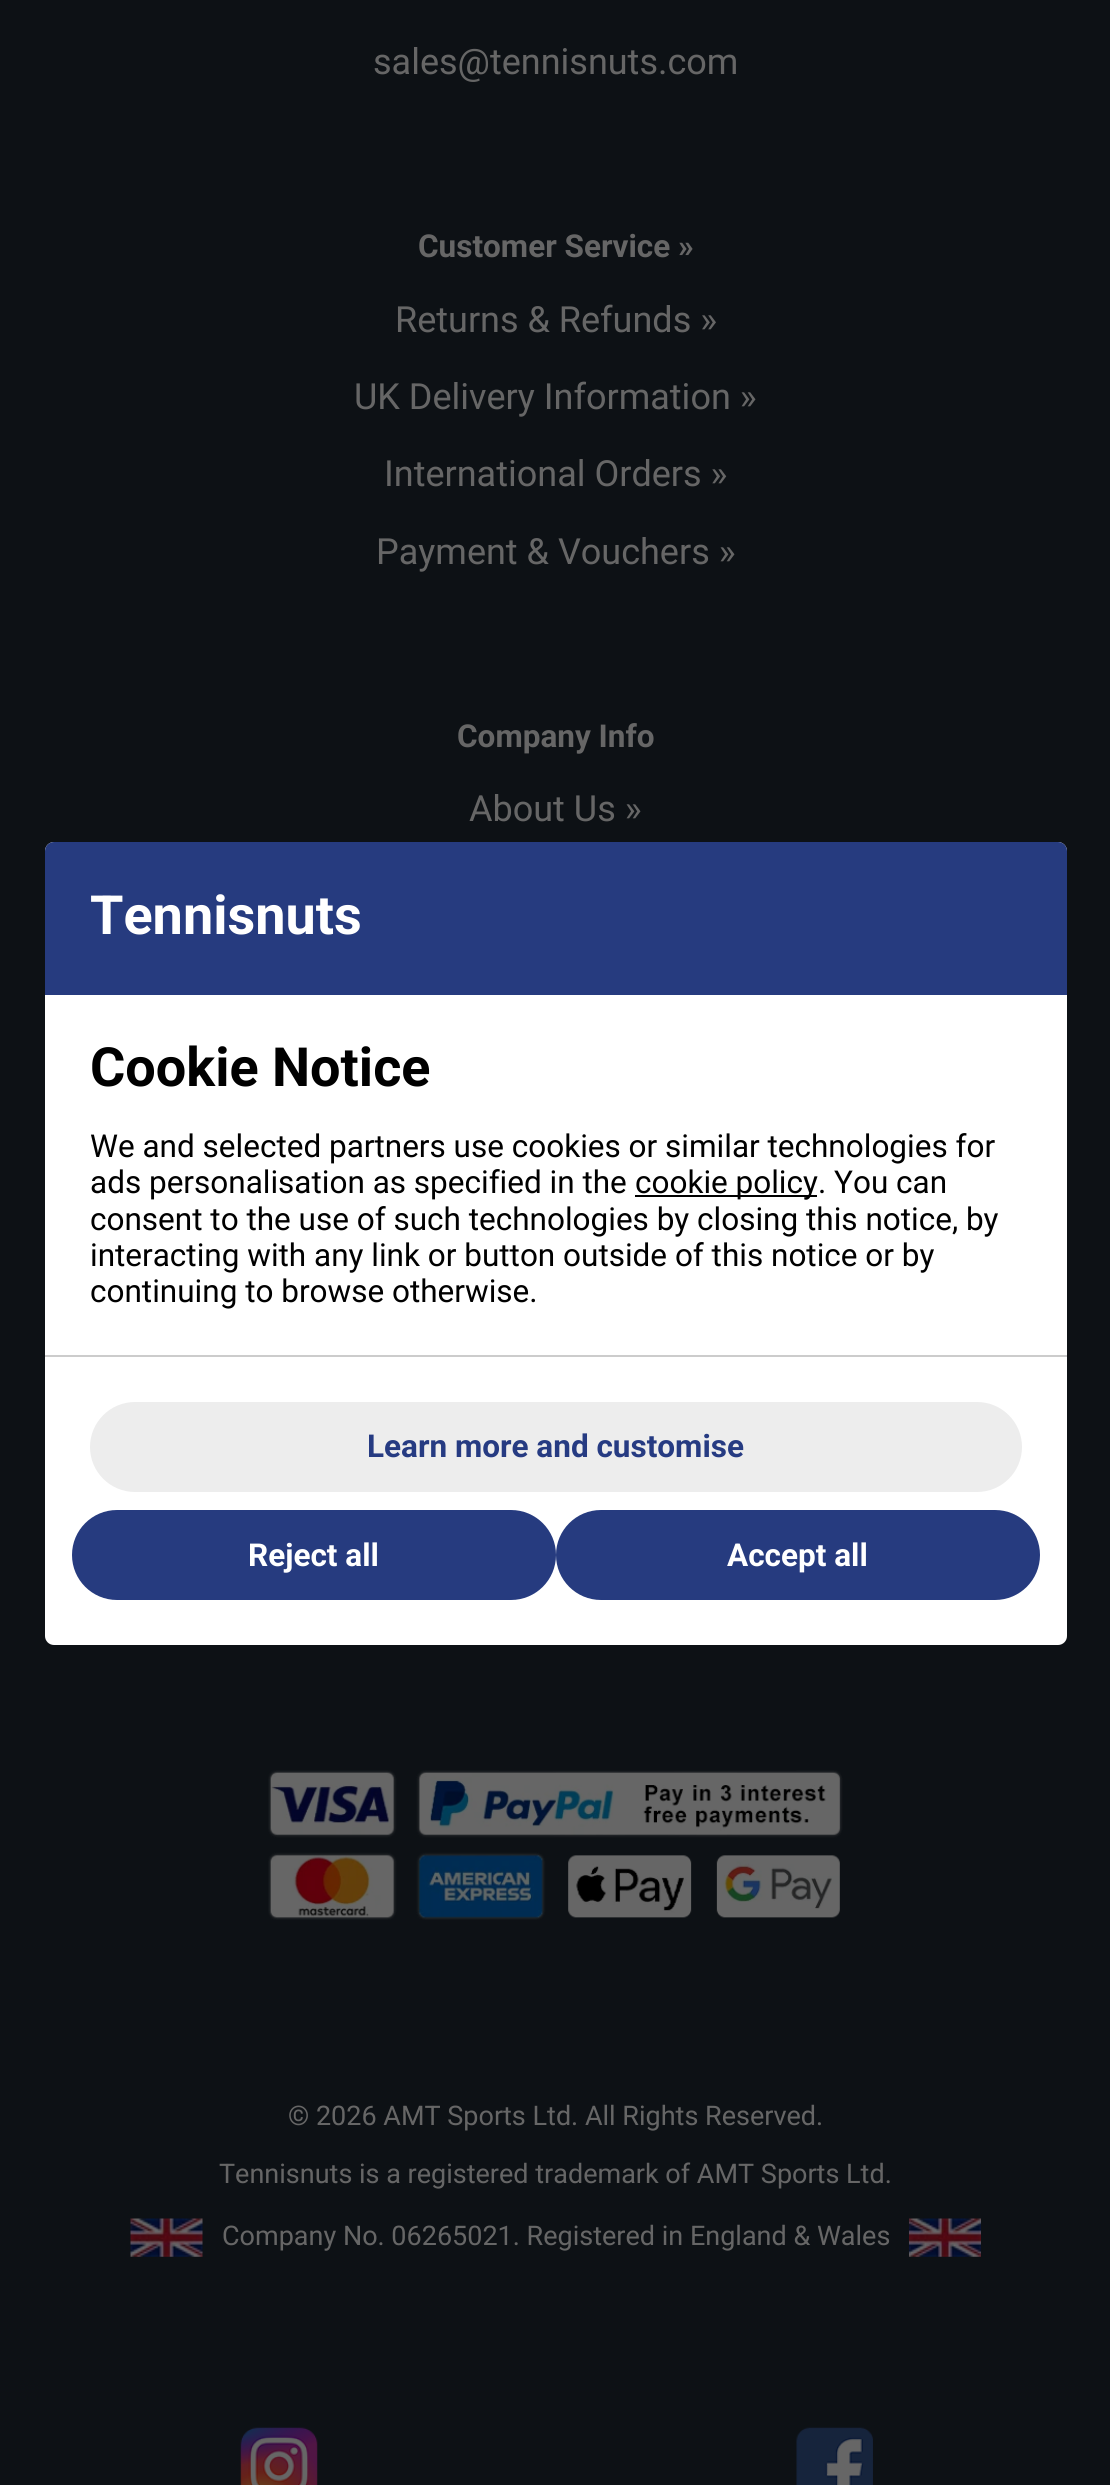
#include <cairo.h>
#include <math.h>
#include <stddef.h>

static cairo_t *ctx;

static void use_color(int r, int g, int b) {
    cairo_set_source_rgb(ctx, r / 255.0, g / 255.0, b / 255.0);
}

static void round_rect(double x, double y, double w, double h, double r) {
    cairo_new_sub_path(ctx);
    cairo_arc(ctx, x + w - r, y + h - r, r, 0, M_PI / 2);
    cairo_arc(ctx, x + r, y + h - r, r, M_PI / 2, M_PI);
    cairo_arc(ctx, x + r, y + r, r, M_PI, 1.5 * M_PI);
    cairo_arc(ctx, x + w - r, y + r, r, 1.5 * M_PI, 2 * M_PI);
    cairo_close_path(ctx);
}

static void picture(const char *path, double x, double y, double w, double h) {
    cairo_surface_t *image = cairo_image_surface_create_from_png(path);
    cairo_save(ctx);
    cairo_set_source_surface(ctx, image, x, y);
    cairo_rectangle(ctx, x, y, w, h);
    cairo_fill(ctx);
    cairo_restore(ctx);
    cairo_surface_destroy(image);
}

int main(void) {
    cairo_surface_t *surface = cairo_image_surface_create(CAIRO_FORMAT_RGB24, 1110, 2485);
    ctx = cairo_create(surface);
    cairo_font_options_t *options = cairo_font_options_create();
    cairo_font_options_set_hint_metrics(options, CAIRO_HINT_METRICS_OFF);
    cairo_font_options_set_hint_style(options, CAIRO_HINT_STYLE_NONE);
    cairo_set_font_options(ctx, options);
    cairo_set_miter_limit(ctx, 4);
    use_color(13, 17, 21);
    cairo_paint(ctx);
    cairo_select_font_face(ctx, "Roboto", CAIRO_FONT_SLANT_NORMAL, CAIRO_FONT_WEIGHT_NORMAL);
    cairo_set_font_size(ctx, 36);
    use_color(102, 102, 102);
    cairo_move_to(ctx, 373, 74);
    cairo_show_text(ctx, "sales@tennisnuts.com");
    cairo_select_font_face(ctx, "Roboto", CAIRO_FONT_SLANT_NORMAL, CAIRO_FONT_WEIGHT_BOLD);
    cairo_set_font_size(ctx, 31.5);
    cairo_move_to(ctx, 418, 257);
    cairo_show_text(ctx, "Customer Service »");
    cairo_select_font_face(ctx, "Roboto", CAIRO_FONT_SLANT_NORMAL, CAIRO_FONT_WEIGHT_NORMAL);
    cairo_set_font_size(ctx, 36);
    cairo_move_to(ctx, 395, 332);
    cairo_show_text(ctx, "Returns & Refunds »");
    cairo_move_to(ctx, 354, 409);
    cairo_show_text(ctx, "UK Delivery Information »");
    cairo_move_to(ctx, 384, 486);
    cairo_show_text(ctx, "International Orders »");
    cairo_move_to(ctx, 376, 564);
    cairo_show_text(ctx, "Payment & Vouchers »");
    cairo_select_font_face(ctx, "Roboto", CAIRO_FONT_SLANT_NORMAL, CAIRO_FONT_WEIGHT_BOLD);
    cairo_set_font_size(ctx, 31.5);
    cairo_move_to(ctx, 457, 747);
    cairo_show_text(ctx, "Company Info");
    cairo_select_font_face(ctx, "Roboto", CAIRO_FONT_SLANT_NORMAL, CAIRO_FONT_WEIGHT_NORMAL);
    cairo_set_font_size(ctx, 36);
    cairo_move_to(ctx, 469, 821);
    cairo_show_text(ctx, "About Us »");
    picture("img1.png", 268, 1770, 575, 150);
    cairo_set_font_size(ctx, 27);
    cairo_move_to(ctx, 288, 2125);
    cairo_show_text(ctx, "© 2026 AMT Sports Ltd. All Rights Reserved.");
    cairo_move_to(ctx, 219, 2183);
    cairo_show_text(ctx, "Tennisnuts is a registered trademark of AMT Sports Ltd.");
    picture("img2.png", 130, 2218, 73, 39);
    cairo_move_to(ctx, 222, 2245);
    cairo_show_text(ctx, "Company No. 06265021. Registered in England & Wales");
    picture("img3.png", 909, 2218, 72, 39);
    picture("img4.png", 240, 2427, 78, 58);
    picture("img5.png", 796, 2427, 77, 58);
    use_color(255, 255, 255);
    round_rect(45, 842, 1022, 803, 9);
    cairo_fill(ctx);
    use_color(38, 59, 127);
    cairo_new_path(ctx);
    cairo_move_to(ctx, 54, 842);
    cairo_line_to(ctx, 1058, 842);
    cairo_curve_to(ctx, 1063, 842, 1067, 846, 1067, 851);
    cairo_line_to(ctx, 1067, 995);
    cairo_line_to(ctx, 45, 995);
    cairo_line_to(ctx, 45, 851);
    cairo_curve_to(ctx, 45, 846, 49, 842, 54, 842);
    cairo_close_path(ctx);
    cairo_fill(ctx);
    cairo_select_font_face(ctx, "Roboto", CAIRO_FONT_SLANT_NORMAL, CAIRO_FONT_WEIGHT_BOLD);
    cairo_set_font_size(ctx, 54);
    use_color(255, 255, 255);
    cairo_move_to(ctx, 90, 934);
    cairo_show_text(ctx, "Tennisnuts");
    use_color(0, 0, 0);
    cairo_move_to(ctx, 90, 1086);
    cairo_show_text(ctx, "Cookie Notice");
    cairo_select_font_face(ctx, "Roboto", CAIRO_FONT_SLANT_NORMAL, CAIRO_FONT_WEIGHT_NORMAL);
    cairo_set_font_size(ctx, 31.5);
    cairo_move_to(ctx, 90, 1157);
    cairo_show_text(ctx, "We and selected partners use cookies or similar technologies for");
    cairo_move_to(ctx, 90, 1193);
    cairo_show_text(ctx, "ads personalisation as specified in the");
    cairo_rectangle(ctx, 635, 1195, 182, 2);
    cairo_fill(ctx);
    cairo_move_to(ctx, 635, 1193);
    cairo_show_text(ctx, "cookie policy. You can");
    cairo_move_to(ctx, 90, 1230);
    cairo_show_text(ctx, "consent to the use of such technologies by closing this notice, by");
    cairo_move_to(ctx, 90, 1266);
    cairo_show_text(ctx, "interacting with any link or button outside of this notice or by");
    cairo_move_to(ctx, 90, 1302);
    cairo_show_text(ctx, "continuing to browse otherwise.");
    use_color(204, 204, 204);
    cairo_rectangle(ctx, 45, 1355, 1022, 2);
    cairo_fill(ctx);
    use_color(237, 237, 237);
    round_rect(90, 1402, 932, 90, 45);
    cairo_fill(ctx);
    cairo_select_font_face(ctx, "Roboto", CAIRO_FONT_SLANT_NORMAL, CAIRO_FONT_WEIGHT_BOLD);
    use_color(38, 59, 130);
    cairo_move_to(ctx, 367, 1457);
    cairo_show_text(ctx, "Learn more and customise");
    use_color(38, 59, 127);
    round_rect(72, 1510, 484, 90, 45);
    cairo_fill(ctx);
    use_color(255, 255, 255);
    cairo_move_to(ctx, 248, 1566);
    cairo_show_text(ctx, "Reject all");
    use_color(38, 59, 127);
    round_rect(556, 1510, 484, 90, 45);
    cairo_fill(ctx);
    use_color(255, 255, 255);
    cairo_move_to(ctx, 727, 1566);
    cairo_show_text(ctx, "Accept all");
    cairo_surface_write_to_png(surface, "result.png");
    cairo_font_options_destroy(options);
    cairo_destroy(ctx);
    cairo_surface_destroy(surface);
    return 0;
}
